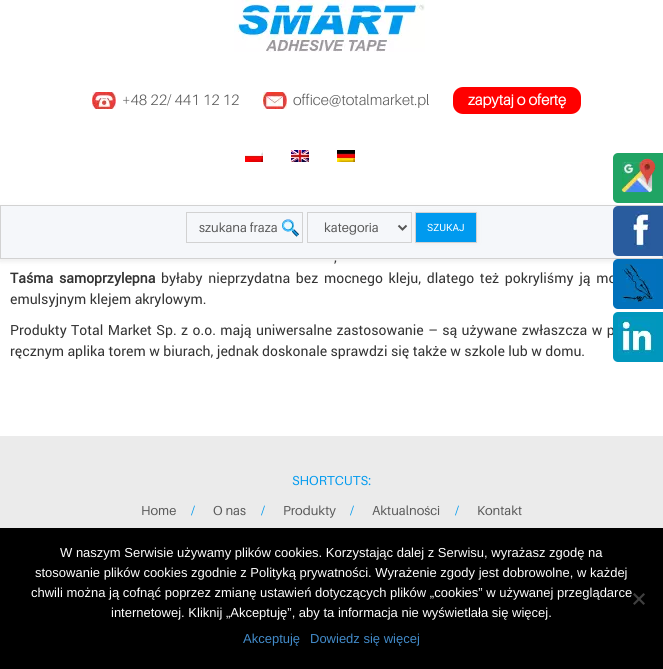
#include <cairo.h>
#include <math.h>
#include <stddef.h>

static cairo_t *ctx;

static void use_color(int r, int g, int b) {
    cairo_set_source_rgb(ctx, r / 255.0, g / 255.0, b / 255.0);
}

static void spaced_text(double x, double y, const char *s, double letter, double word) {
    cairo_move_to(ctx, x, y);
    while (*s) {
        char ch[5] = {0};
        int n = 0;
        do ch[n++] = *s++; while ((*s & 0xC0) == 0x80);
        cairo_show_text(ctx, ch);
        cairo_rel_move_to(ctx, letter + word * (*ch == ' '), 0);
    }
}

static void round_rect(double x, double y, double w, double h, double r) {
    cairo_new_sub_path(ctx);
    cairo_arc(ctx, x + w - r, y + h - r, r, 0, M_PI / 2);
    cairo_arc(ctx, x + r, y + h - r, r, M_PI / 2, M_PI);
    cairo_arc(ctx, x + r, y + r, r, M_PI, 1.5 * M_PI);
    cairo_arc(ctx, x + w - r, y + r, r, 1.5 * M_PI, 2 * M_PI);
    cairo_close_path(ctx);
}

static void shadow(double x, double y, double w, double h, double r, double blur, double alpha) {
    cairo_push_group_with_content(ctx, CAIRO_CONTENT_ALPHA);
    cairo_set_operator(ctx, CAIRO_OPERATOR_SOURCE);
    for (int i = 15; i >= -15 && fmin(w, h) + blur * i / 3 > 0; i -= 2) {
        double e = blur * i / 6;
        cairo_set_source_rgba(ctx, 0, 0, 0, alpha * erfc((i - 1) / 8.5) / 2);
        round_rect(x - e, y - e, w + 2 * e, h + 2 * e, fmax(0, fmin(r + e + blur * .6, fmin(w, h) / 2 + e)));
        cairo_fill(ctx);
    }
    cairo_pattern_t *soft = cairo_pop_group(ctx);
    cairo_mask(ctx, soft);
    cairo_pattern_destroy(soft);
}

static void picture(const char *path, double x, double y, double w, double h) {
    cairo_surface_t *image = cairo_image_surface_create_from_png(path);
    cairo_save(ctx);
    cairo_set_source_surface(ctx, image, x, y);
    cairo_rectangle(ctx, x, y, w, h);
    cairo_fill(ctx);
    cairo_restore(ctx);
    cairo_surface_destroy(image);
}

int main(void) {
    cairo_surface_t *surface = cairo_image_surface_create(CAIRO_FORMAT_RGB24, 663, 669);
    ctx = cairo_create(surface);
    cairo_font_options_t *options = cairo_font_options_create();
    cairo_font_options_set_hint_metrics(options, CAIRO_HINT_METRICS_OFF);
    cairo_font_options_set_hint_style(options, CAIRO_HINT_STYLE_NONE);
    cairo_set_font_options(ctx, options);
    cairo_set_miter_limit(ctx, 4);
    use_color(255, 255, 255);
    cairo_paint(ctx);
    use_color(0, 0, 0);
    shadow(0, 2, 663, 259, 0, 2.5, 0.1);
    use_color(255, 255, 255);
    cairo_rectangle(ctx, 0, 0, 663, 205);
    cairo_fill(ctx);
    picture("img1.png", 234, 0, 191, 52);
    picture("img2.png", 92, 92, 24, 17);
    cairo_select_font_face(ctx, "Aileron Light", CAIRO_FONT_SLANT_NORMAL, CAIRO_FONT_WEIGHT_NORMAL);
    cairo_set_font_size(ctx, 15);
    use_color(90, 90, 90);
    cairo_move_to(ctx, 122, 105);
    cairo_show_text(ctx, "+48 22/ 441 12 12");
    picture("img3.png", 263, 92, 24, 17);
    cairo_move_to(ctx, 293, 105);
    cairo_show_text(ctx, "office@totalmarket.pl");
    use_color(255, 0, 0);
    round_rect(453, 87, 128, 27, 10);
    cairo_fill(ctx);
    cairo_select_font_face(ctx, "Aileron", CAIRO_FONT_SLANT_NORMAL, CAIRO_FONT_WEIGHT_BOLD);
    use_color(255, 255, 255);
    cairo_move_to(ctx, 468, 105);
    cairo_show_text(ctx, "zapytaj o ofertę");
    picture("img4.png", 245, 150, 18, 12);
    picture("img5.png", 291, 150, 18, 12);
    picture("img6.png", 337, 150, 18, 12);
    use_color(251, 251, 251);
    shadow(0, 205, 663, 54, 0, 2.5, 1);
    use_color(245, 247, 250);
    cairo_rectangle(ctx, 0.5, 205.5, 662, 53);
    cairo_fill_preserve(ctx);
    use_color(210, 210, 210);
    cairo_set_line_width(ctx, 1);
    cairo_stroke(ctx);
    picture("img7.png", 282, 219, 17, 18);
    cairo_rectangle(ctx, 186.5, 212.5, 116, 30);
    cairo_stroke(ctx);
    cairo_select_font_face(ctx, "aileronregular", CAIRO_FONT_SLANT_NORMAL, CAIRO_FONT_WEIGHT_NORMAL);
    cairo_set_font_size(ctx, 13);
    use_color(90, 90, 90);
    cairo_move_to(ctx, 199, 232);
    cairo_show_text(ctx, "szukana fraza");
    cairo_rectangle(ctx, 307.5, 212.5, 104, 30);
    use_color(210, 210, 210);
    cairo_stroke(ctx);
    cairo_new_path(ctx);
    cairo_move_to(ctx, 398.5, 225.5);
    cairo_line_to(ctx, 402.5, 229.5);
    cairo_line_to(ctx, 406.5, 225.5);
    use_color(85, 85, 85);
    cairo_set_line_width(ctx, 2);
    cairo_stroke(ctx);
    use_color(90, 90, 90);
    cairo_move_to(ctx, 324, 232);
    cairo_show_text(ctx, "kategoria");
    use_color(238, 238, 238);
    shadow(415, 212, 62, 31, 0, 2.5, 1);
    use_color(0, 154, 239);
    cairo_rectangle(ctx, 415.5, 212.5, 61, 30);
    cairo_fill_preserve(ctx);
    use_color(210, 210, 210);
    cairo_set_line_width(ctx, 1);
    cairo_stroke(ctx);
    cairo_select_font_face(ctx, "roboto", CAIRO_FONT_SLANT_NORMAL, CAIRO_FONT_WEIGHT_NORMAL);
    cairo_set_font_size(ctx, 10);
    use_color(255, 255, 255);
    cairo_move_to(ctx, 427, 231);
    cairo_show_text(ctx, "SZUKAJ");
    cairo_set_font_size(ctx, 14);
    use_color(51, 51, 51);
    spaced_text(334, 262, ",", 0, 1);
    cairo_select_font_face(ctx, "roboto", CAIRO_FONT_SLANT_NORMAL, CAIRO_FONT_WEIGHT_BOLD);
    spaced_text(10, 283, "Taśma samoprzylepna", 0, 2.25);
    cairo_select_font_face(ctx, "roboto", CAIRO_FONT_SLANT_NORMAL, CAIRO_FONT_WEIGHT_NORMAL);
    spaced_text(161, 283, "byłaby nieprzydatna bez mocnego kleju, dlatego też pokryliśmy ją mo", 0, 2.25);
    cairo_move_to(ctx, 10, 304);
    cairo_show_text(ctx, "emulsyjnym klejem akrylowym.");
    spaced_text(10, 335, "Produkty Total Market Sp. z o.o. mają uniwersalne zastosowanie – są używane zwłaszcza w p", 0, 0.9);
    cairo_move_to(ctx, 10, 356);
    cairo_show_text(ctx, "ręcznym aplika torem w biurach, jednak doskonale sprawdzi się także w szkole lub w domu.");
    use_color(235, 235, 235);
    cairo_rectangle(ctx, 0, 436, 663, 92);
    cairo_fill(ctx);
    cairo_select_font_face(ctx, "aileronregular", CAIRO_FONT_SLANT_NORMAL, CAIRO_FONT_WEIGHT_NORMAL);
    cairo_set_font_size(ctx, 13);
    use_color(0, 154, 239);
    cairo_move_to(ctx, 292, 485);
    cairo_show_text(ctx, "SHORTCUTS:");
    use_color(90, 90, 90);
    cairo_move_to(ctx, 141, 515);
    cairo_show_text(ctx, "Home");
    use_color(0, 154, 239);
    cairo_move_to(ctx, 191, 515);
    cairo_show_text(ctx, "/");
    use_color(90, 90, 90);
    cairo_move_to(ctx, 213, 515);
    cairo_show_text(ctx, "O nas");
    use_color(0, 154, 239);
    cairo_move_to(ctx, 261, 515);
    cairo_show_text(ctx, "/");
    use_color(90, 90, 90);
    cairo_move_to(ctx, 283, 515);
    cairo_show_text(ctx, "Produkty");
    use_color(0, 154, 239);
    cairo_move_to(ctx, 350, 515);
    cairo_show_text(ctx, "/");
    use_color(90, 90, 90);
    cairo_move_to(ctx, 372, 515);
    cairo_show_text(ctx, "Aktualności");
    use_color(0, 154, 239);
    cairo_move_to(ctx, 455, 515);
    cairo_show_text(ctx, "/");
    use_color(90, 90, 90);
    cairo_move_to(ctx, 477, 515);
    cairo_show_text(ctx, "Kontakt");
    use_color(32, 164, 100);
    round_rect(613, 153, 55, 50, 5);
    cairo_fill(ctx);
    picture("img8.png", 621, 158, 35, 35);
    use_color(41, 92, 158);
    round_rect(613, 206, 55, 50, 5);
    cairo_fill(ctx);
    picture("img9.png", 630, 211, 21, 38);
    use_color(1, 113, 187);
    round_rect(613, 259, 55, 50, 5);
    cairo_fill(ctx);
    picture("img10.png", 618, 264, 38, 38);
    use_color(0, 151, 189);
    round_rect(613, 312, 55, 50, 5);
    cairo_fill(ctx);
    picture("img11.png", 618, 317, 38, 38);
    use_color(0, 0, 0);
    cairo_rectangle(ctx, 0, 528, 663, 141);
    cairo_fill(ctx);
    cairo_select_font_face(ctx, "Liberation Sans", CAIRO_FONT_SLANT_NORMAL, CAIRO_FONT_WEIGHT_NORMAL);
    use_color(255, 255, 255);
    cairo_move_to(ctx, 60, 557);
    cairo_show_text(ctx, "W naszym Serwisie używamy plików cookies. Korzystając dalej z Serwisu, wyrażasz zgodę na");
    cairo_move_to(ctx, 35, 577);
    cairo_show_text(ctx, "stosowanie plików cookies zgodnie z Polityką prywatności. Wyrażenie zgody jest dobrowolne, w każdej");
    cairo_move_to(ctx, 31, 597);
    cairo_show_text(ctx, "chwili można ją cofnąć poprzez zmianę ustawień dotyczących plików „cookies” w używanej przeglądarce");
    cairo_move_to(ctx, 111, 617);
    cairo_show_text(ctx, "internetowej. Kliknij „Akceptuję”, aby ta informacja nie wyświetlała się więcej.");
    use_color(64, 64, 64);
    cairo_new_path(ctx);
    cairo_move_to(ctx, 643.5, 593);
    cairo_line_to(ctx, 645, 594.5);
    cairo_line_to(ctx, 634.5, 605);
    cairo_line_to(ctx, 633, 603.5);
    cairo_close_path(ctx);
    cairo_fill(ctx);
    cairo_new_path(ctx);
    cairo_move_to(ctx, 633, 594.5);
    cairo_line_to(ctx, 634.5, 593);
    cairo_line_to(ctx, 645, 603.5);
    cairo_line_to(ctx, 643.5, 605);
    cairo_close_path(ctx);
    cairo_fill(ctx);
    use_color(66, 139, 202);
    cairo_move_to(ctx, 243, 643);
    cairo_show_text(ctx, "Akceptuję");
    cairo_move_to(ctx, 310, 643);
    cairo_show_text(ctx, "Dowiedz się więcej");
    cairo_surface_write_to_png(surface, "result.png");
    cairo_font_options_destroy(options);
    cairo_destroy(ctx);
    cairo_surface_destroy(surface);
    return 0;
}
